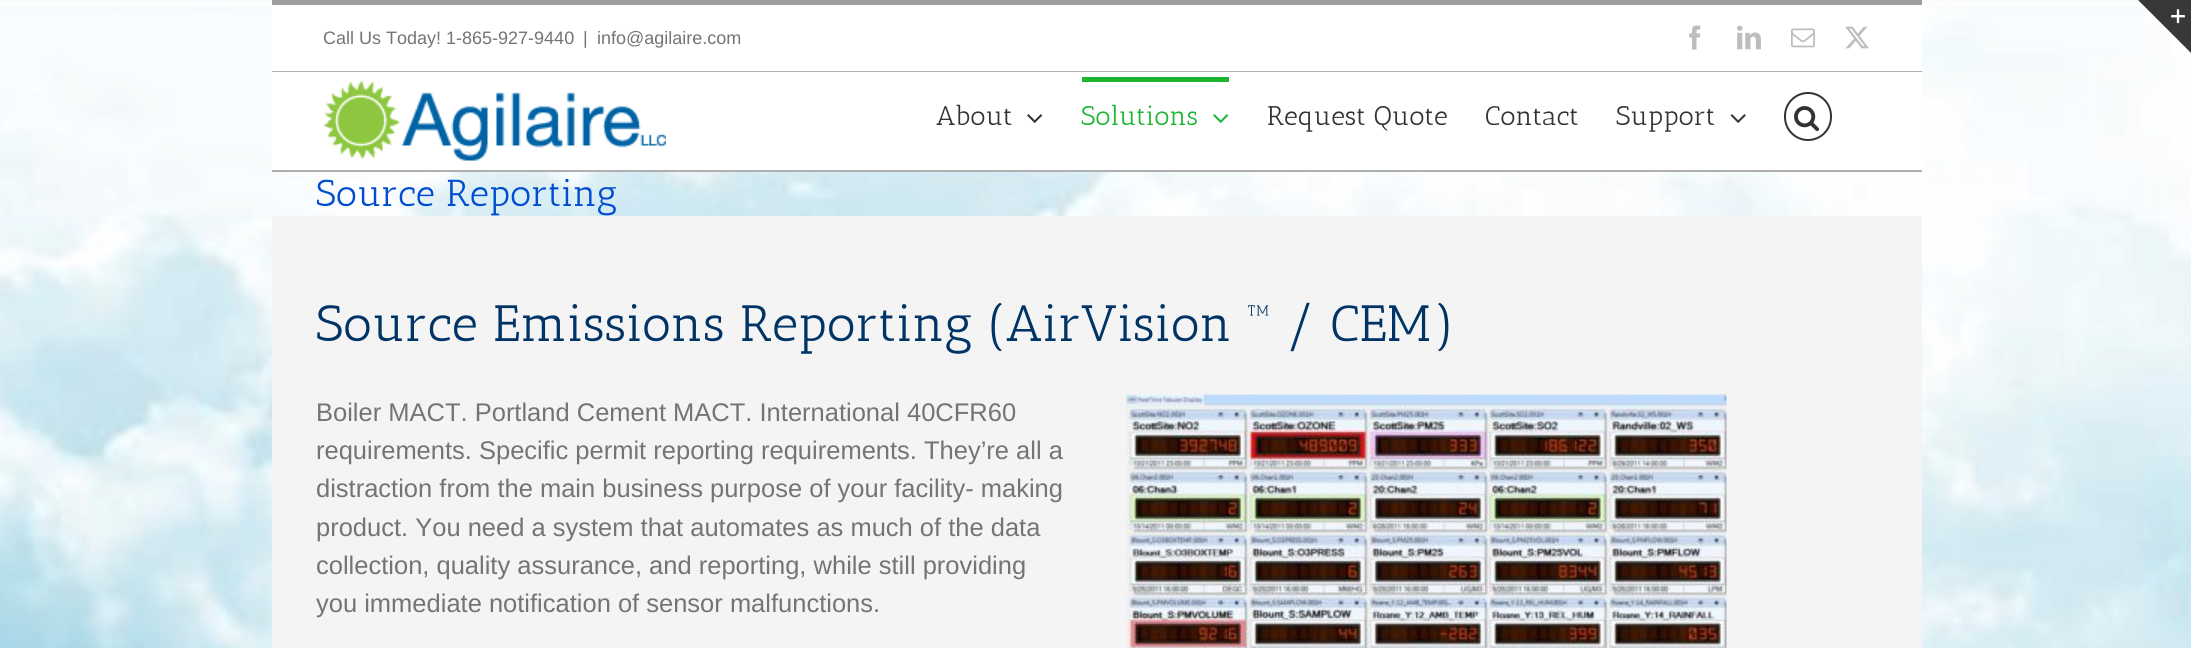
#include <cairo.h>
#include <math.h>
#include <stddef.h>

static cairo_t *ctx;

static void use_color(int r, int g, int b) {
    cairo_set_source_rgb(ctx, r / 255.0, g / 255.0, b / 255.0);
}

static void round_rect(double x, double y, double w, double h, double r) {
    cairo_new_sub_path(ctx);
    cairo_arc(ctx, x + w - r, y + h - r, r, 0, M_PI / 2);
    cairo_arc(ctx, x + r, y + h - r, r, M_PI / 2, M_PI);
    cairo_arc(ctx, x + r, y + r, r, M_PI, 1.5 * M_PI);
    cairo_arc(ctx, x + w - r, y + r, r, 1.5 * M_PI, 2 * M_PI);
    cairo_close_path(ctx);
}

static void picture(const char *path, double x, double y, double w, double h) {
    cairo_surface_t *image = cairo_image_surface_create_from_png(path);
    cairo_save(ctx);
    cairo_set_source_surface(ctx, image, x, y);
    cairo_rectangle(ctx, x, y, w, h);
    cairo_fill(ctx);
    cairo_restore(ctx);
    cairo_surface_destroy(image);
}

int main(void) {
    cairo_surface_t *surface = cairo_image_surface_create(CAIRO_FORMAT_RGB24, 2191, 648);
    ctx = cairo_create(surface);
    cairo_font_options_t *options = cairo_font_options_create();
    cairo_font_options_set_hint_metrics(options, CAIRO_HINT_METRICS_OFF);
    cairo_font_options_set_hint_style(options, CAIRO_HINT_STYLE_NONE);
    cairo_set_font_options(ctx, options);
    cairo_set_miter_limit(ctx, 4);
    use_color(255, 255, 255);
    cairo_paint(ctx);
    picture("img1.png", 0, 0, 2191, 648);
    use_color(255, 255, 255);
    cairo_rectangle(ctx, 272, 5, 1650, 66);
    cairo_fill(ctx);
    use_color(158, 158, 158);
    cairo_rectangle(ctx, 272, 0, 1650, 5);
    cairo_fill(ctx);
    use_color(175, 175, 175);
    cairo_rectangle(ctx, 272, 71, 1650, 1);
    cairo_fill(ctx);
    cairo_select_font_face(ctx, "Liberation Sans", CAIRO_FONT_SLANT_NORMAL, CAIRO_FONT_WEIGHT_NORMAL);
    cairo_set_font_size(ctx, 18);
    use_color(116, 116, 116);
    cairo_move_to(ctx, 323, 44);
    cairo_show_text(ctx, "Call Us Today! 1-865-927-9440");
    cairo_move_to(ctx, 583, 44);
    cairo_show_text(ctx, "|");
    cairo_move_to(ctx, 597, 44);
    cairo_show_text(ctx, "info@agilaire.com");
    picture("img2.png", 1689, 25, 12, 25);
    picture("img3.png", 1737, 25, 24, 25);
    picture("img4.png", 1791, 28, 24, 20);
    picture("img5.png", 1845, 26, 24, 23);
    use_color(255, 255, 255);
    cairo_rectangle(ctx, 272, 72, 1650, 98);
    cairo_fill(ctx);
    use_color(175, 175, 175);
    cairo_rectangle(ctx, 272, 170, 1650, 2);
    cairo_fill(ctx);
    picture("img6.png", 323, 81, 343, 80);
    cairo_select_font_face(ctx, "Antic Slab", CAIRO_FONT_SLANT_NORMAL, CAIRO_FONT_WEIGHT_NORMAL);
    cairo_set_font_size(ctx, 27);
    use_color(51, 51, 51);
    cairo_move_to(ctx, 936, 125);
    cairo_show_text(ctx, "About");
    picture("img7.png", 1027, 114, 16, 9);
    use_color(28, 181, 51);
    cairo_rectangle(ctx, 1082, 77, 147, 5);
    cairo_fill(ctx);
    cairo_move_to(ctx, 1081, 125);
    cairo_show_text(ctx, "Solutions");
    picture("img8.png", 1213, 114, 16, 9);
    use_color(51, 51, 51);
    cairo_move_to(ctx, 1267, 125);
    cairo_show_text(ctx, "Request Quote");
    cairo_move_to(ctx, 1485, 125);
    cairo_show_text(ctx, "Contact");
    cairo_move_to(ctx, 1616, 125);
    cairo_show_text(ctx, "Support");
    picture("img9.png", 1730, 114, 16, 9);
    round_rect(1785, 93, 46, 47, 23);
    cairo_stroke(ctx);
    picture("img10.png", 1794, 106, 26, 26);
    use_color(54, 56, 57);
    cairo_new_path(ctx);
    cairo_move_to(ctx, 2138, 0);
    cairo_line_to(ctx, 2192, 0);
    cairo_line_to(ctx, 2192, 54);
    cairo_close_path(ctx);
    cairo_fill(ctx);
    picture("img11.png", 2171, 9, 14, 15);
    cairo_set_font_size(ctx, 37.5);
    use_color(0, 77, 211);
    cairo_move_to(ctx, 316, 206);
    cairo_show_text(ctx, "Source Reporting");
    use_color(244, 244, 244);
    cairo_rectangle(ctx, 272, 216, 1650, 432);
    cairo_fill(ctx);
    cairo_set_font_size(ctx, 51);
    use_color(0, 51, 102);
    cairo_move_to(ctx, 316, 341);
    cairo_show_text(ctx, "Source Emissions Reporting (AirVision ™ / CEM)");
    cairo_select_font_face(ctx, "Liberation Sans", CAIRO_FONT_SLANT_NORMAL, CAIRO_FONT_WEIGHT_NORMAL);
    cairo_set_font_size(ctx, 25.5);
    use_color(116, 116, 116);
    cairo_move_to(ctx, 316, 421);
    cairo_show_text(ctx, "Boiler MACT. Portland Cement MACT. International 40CFR60");
    cairo_move_to(ctx, 316, 459);
    cairo_show_text(ctx, "requirements. Specific permit reporting requirements. They’re all a");
    cairo_move_to(ctx, 316, 497);
    cairo_show_text(ctx, "distraction from the main business purpose of your facility- making");
    cairo_move_to(ctx, 316, 536);
    cairo_show_text(ctx, "product. You need a system that automates as much of the data");
    cairo_move_to(ctx, 316, 574);
    cairo_show_text(ctx, "collection, quality assurance, and reporting, while still providing");
    cairo_move_to(ctx, 316, 612);
    cairo_show_text(ctx, "you immediate notification of sensor malfunctions.");
    picture("img12.png", 1126, 394, 601, 254);
    cairo_surface_write_to_png(surface, "result.png");
    cairo_font_options_destroy(options);
    cairo_destroy(ctx);
    cairo_surface_destroy(surface);
    return 0;
}
